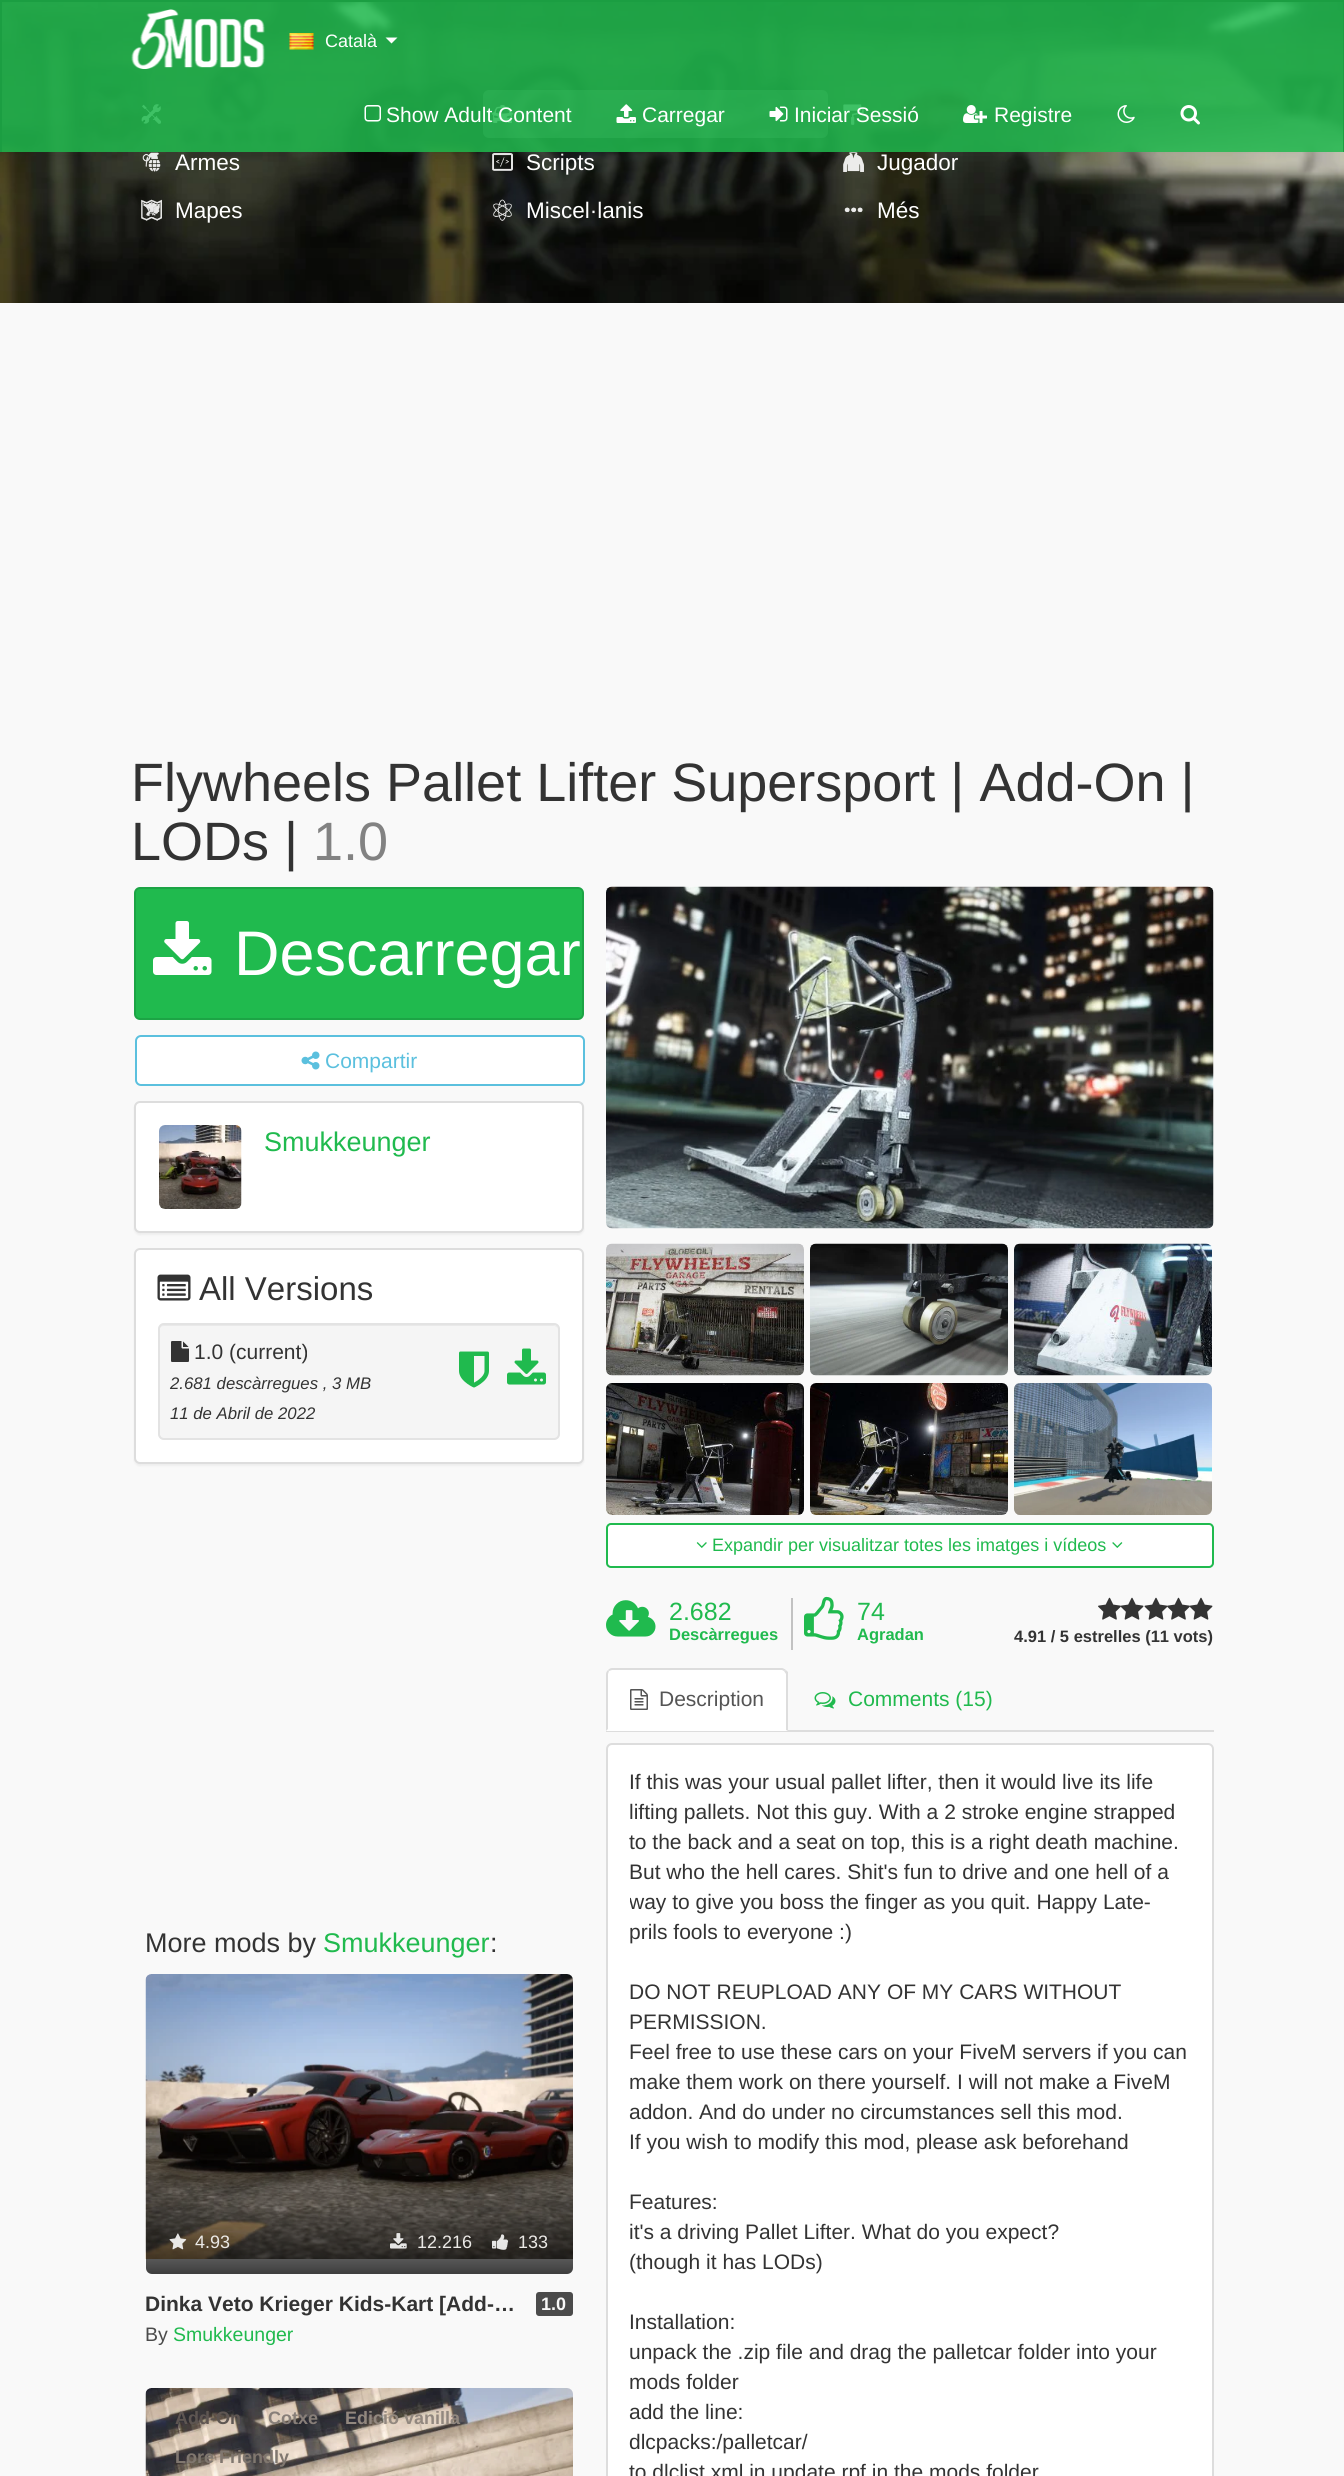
#include <cairo.h>
#include <math.h>
#include <stddef.h>

static cairo_t *ctx;

static void use_color(int r, int g, int b) {
    cairo_set_source_rgb(ctx, r / 255.0, g / 255.0, b / 255.0);
}

static void round_rect(double x, double y, double w, double h, double r) {
    cairo_new_sub_path(ctx);
    cairo_arc(ctx, x + w - r, y + h - r, r, 0, M_PI / 2);
    cairo_arc(ctx, x + r, y + h - r, r, M_PI / 2, M_PI);
    cairo_arc(ctx, x + r, y + r, r, M_PI, 1.5 * M_PI);
    cairo_arc(ctx, x + w - r, y + r, r, 1.5 * M_PI, 2 * M_PI);
    cairo_close_path(ctx);
}

static void shadow(double x, double y, double w, double h, double r, double blur, double alpha) {
    cairo_push_group_with_content(ctx, CAIRO_CONTENT_ALPHA);
    cairo_set_operator(ctx, CAIRO_OPERATOR_SOURCE);
    for (int i = 15; i >= -15 && fmin(w, h) + blur * i / 3 > 0; i -= 2) {
        double e = blur * i / 6;
        cairo_set_source_rgba(ctx, 0, 0, 0, alpha * erfc((i - 1) / 8.5) / 2);
        round_rect(x - e, y - e, w + 2 * e, h + 2 * e, fmax(0, fmin(r + e + blur * .6, fmin(w, h) / 2 + e)));
        cairo_fill(ctx);
    }
    cairo_pattern_t *soft = cairo_pop_group(ctx);
    cairo_mask(ctx, soft);
    cairo_pattern_destroy(soft);
}

static void picture(const char *path, double x, double y, double w, double h) {
    cairo_surface_t *image = cairo_image_surface_create_from_png(path);
    cairo_save(ctx);
    cairo_set_source_surface(ctx, image, x, y);
    cairo_rectangle(ctx, x, y, w, h);
    cairo_fill(ctx);
    cairo_restore(ctx);
    cairo_surface_destroy(image);
}

int main(void) {
    cairo_surface_t *surface = cairo_image_surface_create(CAIRO_FORMAT_RGB24, 1344, 2476);
    ctx = cairo_create(surface);
    cairo_font_options_t *options = cairo_font_options_create();
    cairo_font_options_set_hint_metrics(options, CAIRO_HINT_METRICS_OFF);
    cairo_font_options_set_hint_style(options, CAIRO_HINT_STYLE_NONE);
    cairo_set_font_options(ctx, options);
    cairo_set_miter_limit(ctx, 4);
    cairo_pattern_t *gradient;
    use_color(249, 249, 249);
    cairo_paint(ctx);
    picture("img9.png", 0, 2, 1344, 301);
    picture("img10.png", 141, 104, 20, 20);
    cairo_set_source_rgba(ctx, 1, 1, 1, 0.25);
    round_rect(483, 90, 345, 48, 6);
    cairo_fill(ctx);
    picture("img11.png", 492, 105, 21, 18);
    picture("img12.png", 843, 104, 21, 21);
    cairo_set_source_rgba(ctx, 0.125, 0.729, 0.306, 0.85);
    cairo_rectangle(ctx, 2, 2, 1341, 150);
    cairo_fill(ctx);
    use_color(27, 158, 66);
    cairo_rectangle(ctx, 0, 0, 1344, 2);
    cairo_fill(ctx);
    cairo_rectangle(ctx, 1343, 0, 1, 152);
    cairo_fill(ctx);
    cairo_rectangle(ctx, 0, 0, 2, 152);
    cairo_fill(ctx);
    picture("img1.png", 131, 9, 134, 60);
    picture("img2.png", 289, 33, 25, 17);
    cairo_select_font_face(ctx, "Liberation Sans", CAIRO_FONT_SLANT_NORMAL, CAIRO_FONT_WEIGHT_NORMAL);
    cairo_set_font_size(ctx, 18);
    use_color(255, 255, 255);
    cairo_move_to(ctx, 325, 47);
    cairo_show_text(ctx, "Català");
    cairo_new_path(ctx);
    cairo_move_to(ctx, 385.5, 37.5);
    cairo_line_to(ctx, 397.5, 37.5);
    cairo_line_to(ctx, 391.5, 43.5);
    cairo_close_path(ctx);
    cairo_fill(ctx);
    picture("img3.png", 364, 105, 17, 17);
    cairo_set_font_size(ctx, 21);
    cairo_move_to(ctx, 386, 122);
    cairo_show_text(ctx, "Show Adult Content");
    picture("img4.png", 616, 104, 20, 19);
    cairo_move_to(ctx, 642, 122);
    cairo_show_text(ctx, "Carregar");
    picture("img5.png", 769, 106, 19, 16);
    cairo_move_to(ctx, 794, 122);
    cairo_show_text(ctx, "Iniciar Sessió");
    picture("img6.png", 963, 105, 24, 18);
    cairo_move_to(ctx, 994, 122);
    cairo_show_text(ctx, "Registre");
    picture("img7.png", 1117, 105, 18, 18);
    picture("img8.png", 1180, 105, 20, 20);
    picture("img13.png", 142, 152, 19, 20);
    cairo_set_font_size(ctx, 22.5);
    cairo_move_to(ctx, 175, 170);
    cairo_show_text(ctx, "Armes");
    picture("img14.png", 492, 153, 21, 18);
    cairo_move_to(ctx, 526, 170);
    cairo_show_text(ctx, "Scripts");
    picture("img15.png", 843, 152, 21, 20);
    cairo_move_to(ctx, 877, 170);
    cairo_show_text(ctx, "Jugador");
    picture("img16.png", 141, 199, 21, 22);
    cairo_move_to(ctx, 175, 218);
    cairo_show_text(ctx, "Mapes");
    picture("img17.png", 493, 199, 19, 22);
    cairo_move_to(ctx, 526, 218);
    cairo_show_text(ctx, "Miscel·lanis");
    picture("img18.png", 844, 207, 19, 6);
    cairo_move_to(ctx, 877, 218);
    cairo_show_text(ctx, "Més");
    cairo_set_font_size(ctx, 54);
    use_color(51, 51, 51);
    cairo_move_to(ctx, 131, 801);
    cairo_show_text(ctx, "Flywheels Pallet Lifter Supersport | Add-On |");
    cairo_move_to(ctx, 131, 860);
    cairo_show_text(ctx, "LODs |");
    use_color(130, 130, 130);
    cairo_move_to(ctx, 313, 860);
    cairo_show_text(ctx, "1.0");
    use_color(32, 186, 78);
    round_rect(135, 888, 448, 131, 5);
    cairo_fill_preserve(ctx);
    use_color(28, 164, 69);
    cairo_stroke(ctx);
    picture("img19.png", 153, 921, 59, 54);
    cairo_set_font_size(ctx, 63);
    use_color(255, 255, 255);
    cairo_move_to(ctx, 234, 975);
    cairo_show_text(ctx, "Descarregar");
    round_rect(136, 1036, 448, 49, 5);
    cairo_fill_preserve(ctx);
    use_color(91, 192, 222);
    cairo_stroke(ctx);
    picture("img20.png", 301, 1051, 19, 19);
    cairo_set_font_size(ctx, 21);
    cairo_move_to(ctx, 325, 1068);
    cairo_show_text(ctx, "Compartir");
    use_color(0, 0, 0);
    shadow(134, 1103, 450, 132, 6, 1, 0.05);
    use_color(255, 255, 255);
    round_rect(135, 1102, 448, 130, 5);
    cairo_fill_preserve(ctx);
    use_color(221, 221, 221);
    cairo_stroke(ctx);
    picture("img21.png", 159, 1125, 83, 84);
    cairo_set_font_size(ctx, 27);
    use_color(32, 186, 78);
    cairo_move_to(ctx, 264, 1151);
    cairo_show_text(ctx, "Smukkeunger");
    use_color(0, 0, 0);
    shadow(134, 1250, 450, 216, 6, 1, 0.05);
    use_color(255, 255, 255);
    round_rect(135, 1249, 448, 214, 5);
    cairo_fill_preserve(ctx);
    use_color(221, 221, 221);
    cairo_stroke(ctx);
    picture("img22.png", 157, 1274, 34, 27);
    cairo_set_font_size(ctx, 33);
    use_color(51, 51, 51);
    cairo_move_to(ctx, 199, 1300);
    cairo_show_text(ctx, "All Versions");
    use_color(245, 245, 245);
    round_rect(158, 1323, 402, 117, 6);
    cairo_fill(ctx);
    use_color(233, 233, 233);
    cairo_new_path(ctx);
    cairo_move_to(ctx, 164, 1326);
    cairo_line_to(ctx, 554, 1326);
    cairo_curve_to(ctx, 556, 1326, 558, 1328, 558, 1330);
    cairo_curve_to(ctx, 558, 1327, 556, 1325, 553, 1325);
    cairo_line_to(ctx, 164, 1325);
    cairo_curve_to(ctx, 161, 1325, 159, 1327, 159, 1330);
    cairo_curve_to(ctx, 159, 1328, 161, 1326, 164, 1326);
    cairo_close_path(ctx);
    cairo_fill(ctx);
    round_rect(159, 1324, 400, 115, 5);
    use_color(227, 227, 227);
    cairo_stroke(ctx);
    picture("img23.png", 171, 1341, 18, 21);
    cairo_set_font_size(ctx, 21);
    use_color(51, 51, 51);
    cairo_move_to(ctx, 194, 1359);
    cairo_show_text(ctx, "1.0 (current)");
    cairo_select_font_face(ctx, "Liberation Sans", CAIRO_FONT_SLANT_ITALIC, CAIRO_FONT_WEIGHT_NORMAL);
    cairo_set_font_size(ctx, 16.75);
    cairo_move_to(ctx, 170, 1389);
    cairo_show_text(ctx, "2.681 descàrregues , 3 MB");
    cairo_move_to(ctx, 170, 1419);
    cairo_show_text(ctx, "11 de Abril de 2022");
    picture("img24.png", 459, 1351, 30, 37);
    picture("img25.png", 507, 1348, 39, 37);
    cairo_select_font_face(ctx, "Liberation Sans", CAIRO_FONT_SLANT_NORMAL, CAIRO_FONT_WEIGHT_NORMAL);
    cairo_set_font_size(ctx, 27);
    cairo_move_to(ctx, 145, 1952);
    cairo_show_text(ctx, "More mods by");
    use_color(32, 186, 78);
    cairo_move_to(ctx, 323, 1952);
    cairo_show_text(ctx, "Smukkeunger");
    use_color(51, 51, 51);
    cairo_move_to(ctx, 490, 1952);
    cairo_show_text(ctx, ":");
    picture("img26.png", 145, 1974, 428, 285);
    gradient = cairo_pattern_create_linear(359, 1974, 359, 2274);
    cairo_pattern_add_color_stop_rgba(gradient, 0.5, 0, 0, 0, 0);
    cairo_pattern_add_color_stop_rgba(gradient, 0.75, 0, 0, 0, 0.25);
    cairo_pattern_add_color_stop_rgba(gradient, 1, 0, 0, 0, 0.75);
    cairo_set_source(ctx, gradient);
    cairo_pattern_destroy(gradient);
    round_rect(146, 1974, 427, 300, 6);
    cairo_fill(ctx);
    picture("img27.png", 169, 2233, 18, 17);
    cairo_set_font_size(ctx, 18);
    use_color(235, 233, 230);
    cairo_move_to(ctx, 195, 2248);
    cairo_show_text(ctx, "4.93");
    picture("img28.png", 390, 2233, 17, 16);
    cairo_move_to(ctx, 417, 2248);
    cairo_show_text(ctx, "12.216");
    picture("img29.png", 492, 2234, 17, 16);
    cairo_move_to(ctx, 518, 2248);
    cairo_show_text(ctx, "133");
    cairo_select_font_face(ctx, "Liberation Sans", CAIRO_FONT_SLANT_NORMAL, CAIRO_FONT_WEIGHT_BOLD);
    cairo_set_font_size(ctx, 21);
    use_color(51, 51, 51);
    cairo_move_to(ctx, 145, 2311);
    cairo_show_text(ctx, "Dinka Veto Krieger Kids-Kart [Add-…");
    use_color(75, 75, 75);
    round_rect(536, 2292, 37, 24, 3);
    cairo_fill(ctx);
    cairo_set_font_size(ctx, 18);
    use_color(249, 249, 249);
    cairo_move_to(ctx, 541, 2310);
    cairo_show_text(ctx, "1.0");
    cairo_select_font_face(ctx, "Liberation Sans", CAIRO_FONT_SLANT_NORMAL, CAIRO_FONT_WEIGHT_NORMAL);
    cairo_set_font_size(ctx, 19.5);
    use_color(75, 75, 75);
    cairo_move_to(ctx, 145, 2341);
    cairo_show_text(ctx, "By");
    use_color(32, 186, 78);
    cairo_move_to(ctx, 173, 2341);
    cairo_show_text(ctx, "Smukkeunger");
    picture("img30.png", 145, 2388, 428, 88);
    cairo_select_font_face(ctx, "Liberation Sans", CAIRO_FONT_SLANT_NORMAL, CAIRO_FONT_WEIGHT_BOLD);
    cairo_set_font_size(ctx, 18);
    use_color(94, 86, 82);
    cairo_move_to(ctx, 175, 2424);
    cairo_show_text(ctx, "Add-On");
    use_color(136, 127, 121);
    cairo_move_to(ctx, 268, 2424);
    cairo_show_text(ctx, "Cotxe");
    use_color(146, 136, 127);
    cairo_move_to(ctx, 345, 2424);
    cairo_show_text(ctx, "Edició vanilla");
    use_color(128, 119, 111);
    cairo_move_to(ctx, 175, 2463);
    cairo_show_text(ctx, "Lore Friendly");
    picture("img31.png", 606, 886, 608, 343);
    picture("img32.png", 606, 1243, 198, 133);
    picture("img33.png", 810, 1243, 198, 133);
    picture("img34.png", 1014, 1243, 198, 133);
    picture("img35.png", 606, 1383, 198, 132);
    picture("img36.png", 810, 1383, 198, 132);
    picture("img37.png", 1014, 1383, 198, 132);
    use_color(255, 255, 255);
    round_rect(607, 1524, 606, 43, 4);
    cairo_fill_preserve(ctx);
    use_color(32, 186, 78);
    cairo_stroke(ctx);
    picture("img38.png", 696, 1542, 11, 6);
    cairo_select_font_face(ctx, "Liberation Sans", CAIRO_FONT_SLANT_NORMAL, CAIRO_FONT_WEIGHT_NORMAL);
    cairo_move_to(ctx, 712, 1551);
    cairo_show_text(ctx, "Expandir per visualitzar totes les imatges i vídeos");
    picture("img39.png", 1112, 1542, 11, 6);
    picture("img40.png", 606, 1600, 50, 37);
    use_color(194, 194, 194);
    cairo_rectangle(ctx, 791, 1598, 2, 52);
    cairo_fill(ctx);
    cairo_set_font_size(ctx, 25);
    use_color(32, 186, 78);
    cairo_move_to(ctx, 669, 1620);
    cairo_show_text(ctx, "2.682");
    cairo_select_font_face(ctx, "Liberation Sans", CAIRO_FONT_SLANT_NORMAL, CAIRO_FONT_WEIGHT_BOLD);
    cairo_set_font_size(ctx, 16.5);
    cairo_move_to(ctx, 669, 1640);
    cairo_show_text(ctx, "Descàrregues");
    picture("img41.png", 804, 1596, 40, 44);
    cairo_select_font_face(ctx, "Liberation Sans", CAIRO_FONT_SLANT_NORMAL, CAIRO_FONT_WEIGHT_NORMAL);
    cairo_set_font_size(ctx, 25);
    cairo_move_to(ctx, 857, 1620);
    cairo_show_text(ctx, "74");
    cairo_select_font_face(ctx, "Liberation Sans", CAIRO_FONT_SLANT_NORMAL, CAIRO_FONT_WEIGHT_BOLD);
    cairo_set_font_size(ctx, 16.5);
    cairo_move_to(ctx, 857, 1640);
    cairo_show_text(ctx, "Agradan");
    picture("img42.png", 1098, 1597, 23, 23);
    picture("img43.png", 1120, 1597, 24, 23);
    picture("img44.png", 1144, 1597, 24, 23);
    picture("img45.png", 1167, 1597, 23, 23);
    picture("img43.png", 1189, 1597, 24, 23);
    use_color(51, 51, 51);
    cairo_move_to(ctx, 1014, 1642);
    cairo_show_text(ctx, "4.91 / 5 estrelles (11 vots)");
    use_color(221, 221, 221);
    cairo_rectangle(ctx, 606, 1730, 608, 2);
    cairo_fill(ctx);
    use_color(255, 255, 255);
    cairo_new_path(ctx);
    cairo_move_to(ctx, 612, 1668);
    cairo_line_to(ctx, 782, 1668);
    cairo_curve_to(ctx, 785.5, 1668, 788, 1670.5, 788, 1674);
    cairo_line_to(ctx, 788, 1731);
    cairo_line_to(ctx, 606, 1731);
    cairo_line_to(ctx, 606, 1674);
    cairo_curve_to(ctx, 606, 1670.5, 608.5, 1668, 612, 1668);
    cairo_close_path(ctx);
    cairo_fill(ctx);
    use_color(221, 221, 221);
    cairo_new_path(ctx);
    cairo_move_to(ctx, 612, 1668);
    cairo_curve_to(ctx, 610, 1668, 609, 1669, 608, 1670);
    cairo_line_to(ctx, 609, 1671);
    cairo_line_to(ctx, 612, 1670);
    cairo_line_to(ctx, 782, 1670);
    cairo_line_to(ctx, 784, 1671);
    cairo_line_to(ctx, 786, 1670);
    cairo_curve_to(ctx, 785, 1669, 783, 1668, 782, 1668);
    cairo_close_path(ctx);
    cairo_fill(ctx);
    cairo_new_path(ctx);
    cairo_move_to(ctx, 788, 1672);
    cairo_line_to(ctx, 788, 1731);
    cairo_line_to(ctx, 786, 1730);
    cairo_line_to(ctx, 786, 1674);
    cairo_line_to(ctx, 784, 1671);
    cairo_line_to(ctx, 786, 1670);
    cairo_close_path(ctx);
    cairo_fill(ctx);
    cairo_new_path(ctx);
    cairo_move_to(ctx, 606, 1731);
    cairo_line_to(ctx, 608, 1729);
    cairo_line_to(ctx, 608, 1674);
    cairo_line_to(ctx, 609, 1671);
    cairo_line_to(ctx, 608, 1670);
    cairo_curve_to(ctx, 607, 1671, 606, 1672, 606, 1674);
    cairo_close_path(ctx);
    cairo_fill(ctx);
    picture("img46.png", 630, 1689, 18, 21);
    cairo_select_font_face(ctx, "Liberation Sans", CAIRO_FONT_SLANT_NORMAL, CAIRO_FONT_WEIGHT_NORMAL);
    cairo_set_font_size(ctx, 21);
    use_color(85, 85, 85);
    cairo_move_to(ctx, 659, 1706);
    cairo_show_text(ctx, "Description");
    picture("img47.png", 814, 1692, 22, 17);
    use_color(32, 186, 78);
    cairo_move_to(ctx, 848, 1706);
    cairo_show_text(ctx, "Comments (15)");
    use_color(255, 255, 255);
    round_rect(607, 1744, 606, 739, 5);
    cairo_fill_preserve(ctx);
    use_color(221, 221, 221);
    cairo_stroke(ctx);
    use_color(51, 51, 51);
    cairo_move_to(ctx, 629, 1789);
    cairo_show_text(ctx, "If this was your usual pallet lifter, then it would live its life");
    cairo_move_to(ctx, 629, 1819);
    cairo_show_text(ctx, "lifting pallets. Not this guy. With a 2 stroke engine strapped");
    cairo_move_to(ctx, 629, 1849);
    cairo_show_text(ctx, "to the back and a seat on top, this is a right death machine.");
    cairo_move_to(ctx, 629, 1879);
    cairo_show_text(ctx, "But who the hell cares. Shit's fun to drive and one hell of a");
    cairo_save(ctx);
    cairo_rectangle(ctx, 630, 1767, 560, 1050);
    cairo_clip(ctx);
    cairo_move_to(ctx, 629, 1909);
    cairo_show_text(ctx, "way to give you boss the finger as you quit. Happy Late-");
    cairo_restore(ctx);
    cairo_move_to(ctx, 629, 1939);
    cairo_show_text(ctx, "prils fools to everyone :)");
    cairo_move_to(ctx, 629, 1999);
    cairo_show_text(ctx, "DO NOT REUPLOAD ANY OF MY CARS WITHOUT");
    cairo_move_to(ctx, 629, 2029);
    cairo_show_text(ctx, "PERMISSION.");
    cairo_move_to(ctx, 629, 2059);
    cairo_show_text(ctx, "Feel free to use these cars on your FiveM servers if you can");
    cairo_move_to(ctx, 629, 2089);
    cairo_show_text(ctx, "make them work on there yourself. I will not make a FiveM");
    cairo_move_to(ctx, 629, 2119);
    cairo_show_text(ctx, "addon. And do under no circumstances sell this mod.");
    cairo_move_to(ctx, 629, 2149);
    cairo_show_text(ctx, "If you wish to modify this mod, please ask beforehand");
    cairo_move_to(ctx, 629, 2209);
    cairo_show_text(ctx, "Features:");
    cairo_move_to(ctx, 629, 2239);
    cairo_show_text(ctx, "it's a driving Pallet Lifter. What do you expect?");
    cairo_move_to(ctx, 629, 2269);
    cairo_show_text(ctx, "(though it has LODs)");
    cairo_move_to(ctx, 629, 2329);
    cairo_show_text(ctx, "Installation:");
    cairo_move_to(ctx, 629, 2359);
    cairo_show_text(ctx, "unpack the .zip file and drag the palletcar folder into your");
    cairo_move_to(ctx, 629, 2389);
    cairo_show_text(ctx, "mods folder");
    cairo_move_to(ctx, 629, 2419);
    cairo_show_text(ctx, "add the line:");
    cairo_move_to(ctx, 629, 2449);
    cairo_show_text(ctx, "dlcpacks:/palletcar/");
    cairo_move_to(ctx, 629, 2479);
    cairo_show_text(ctx, "to dlclist.xml in update.rpf in the mods folder");
    cairo_surface_write_to_png(surface, "result.png");
    cairo_font_options_destroy(options);
    cairo_destroy(ctx);
    cairo_surface_destroy(surface);
    return 0;
}
